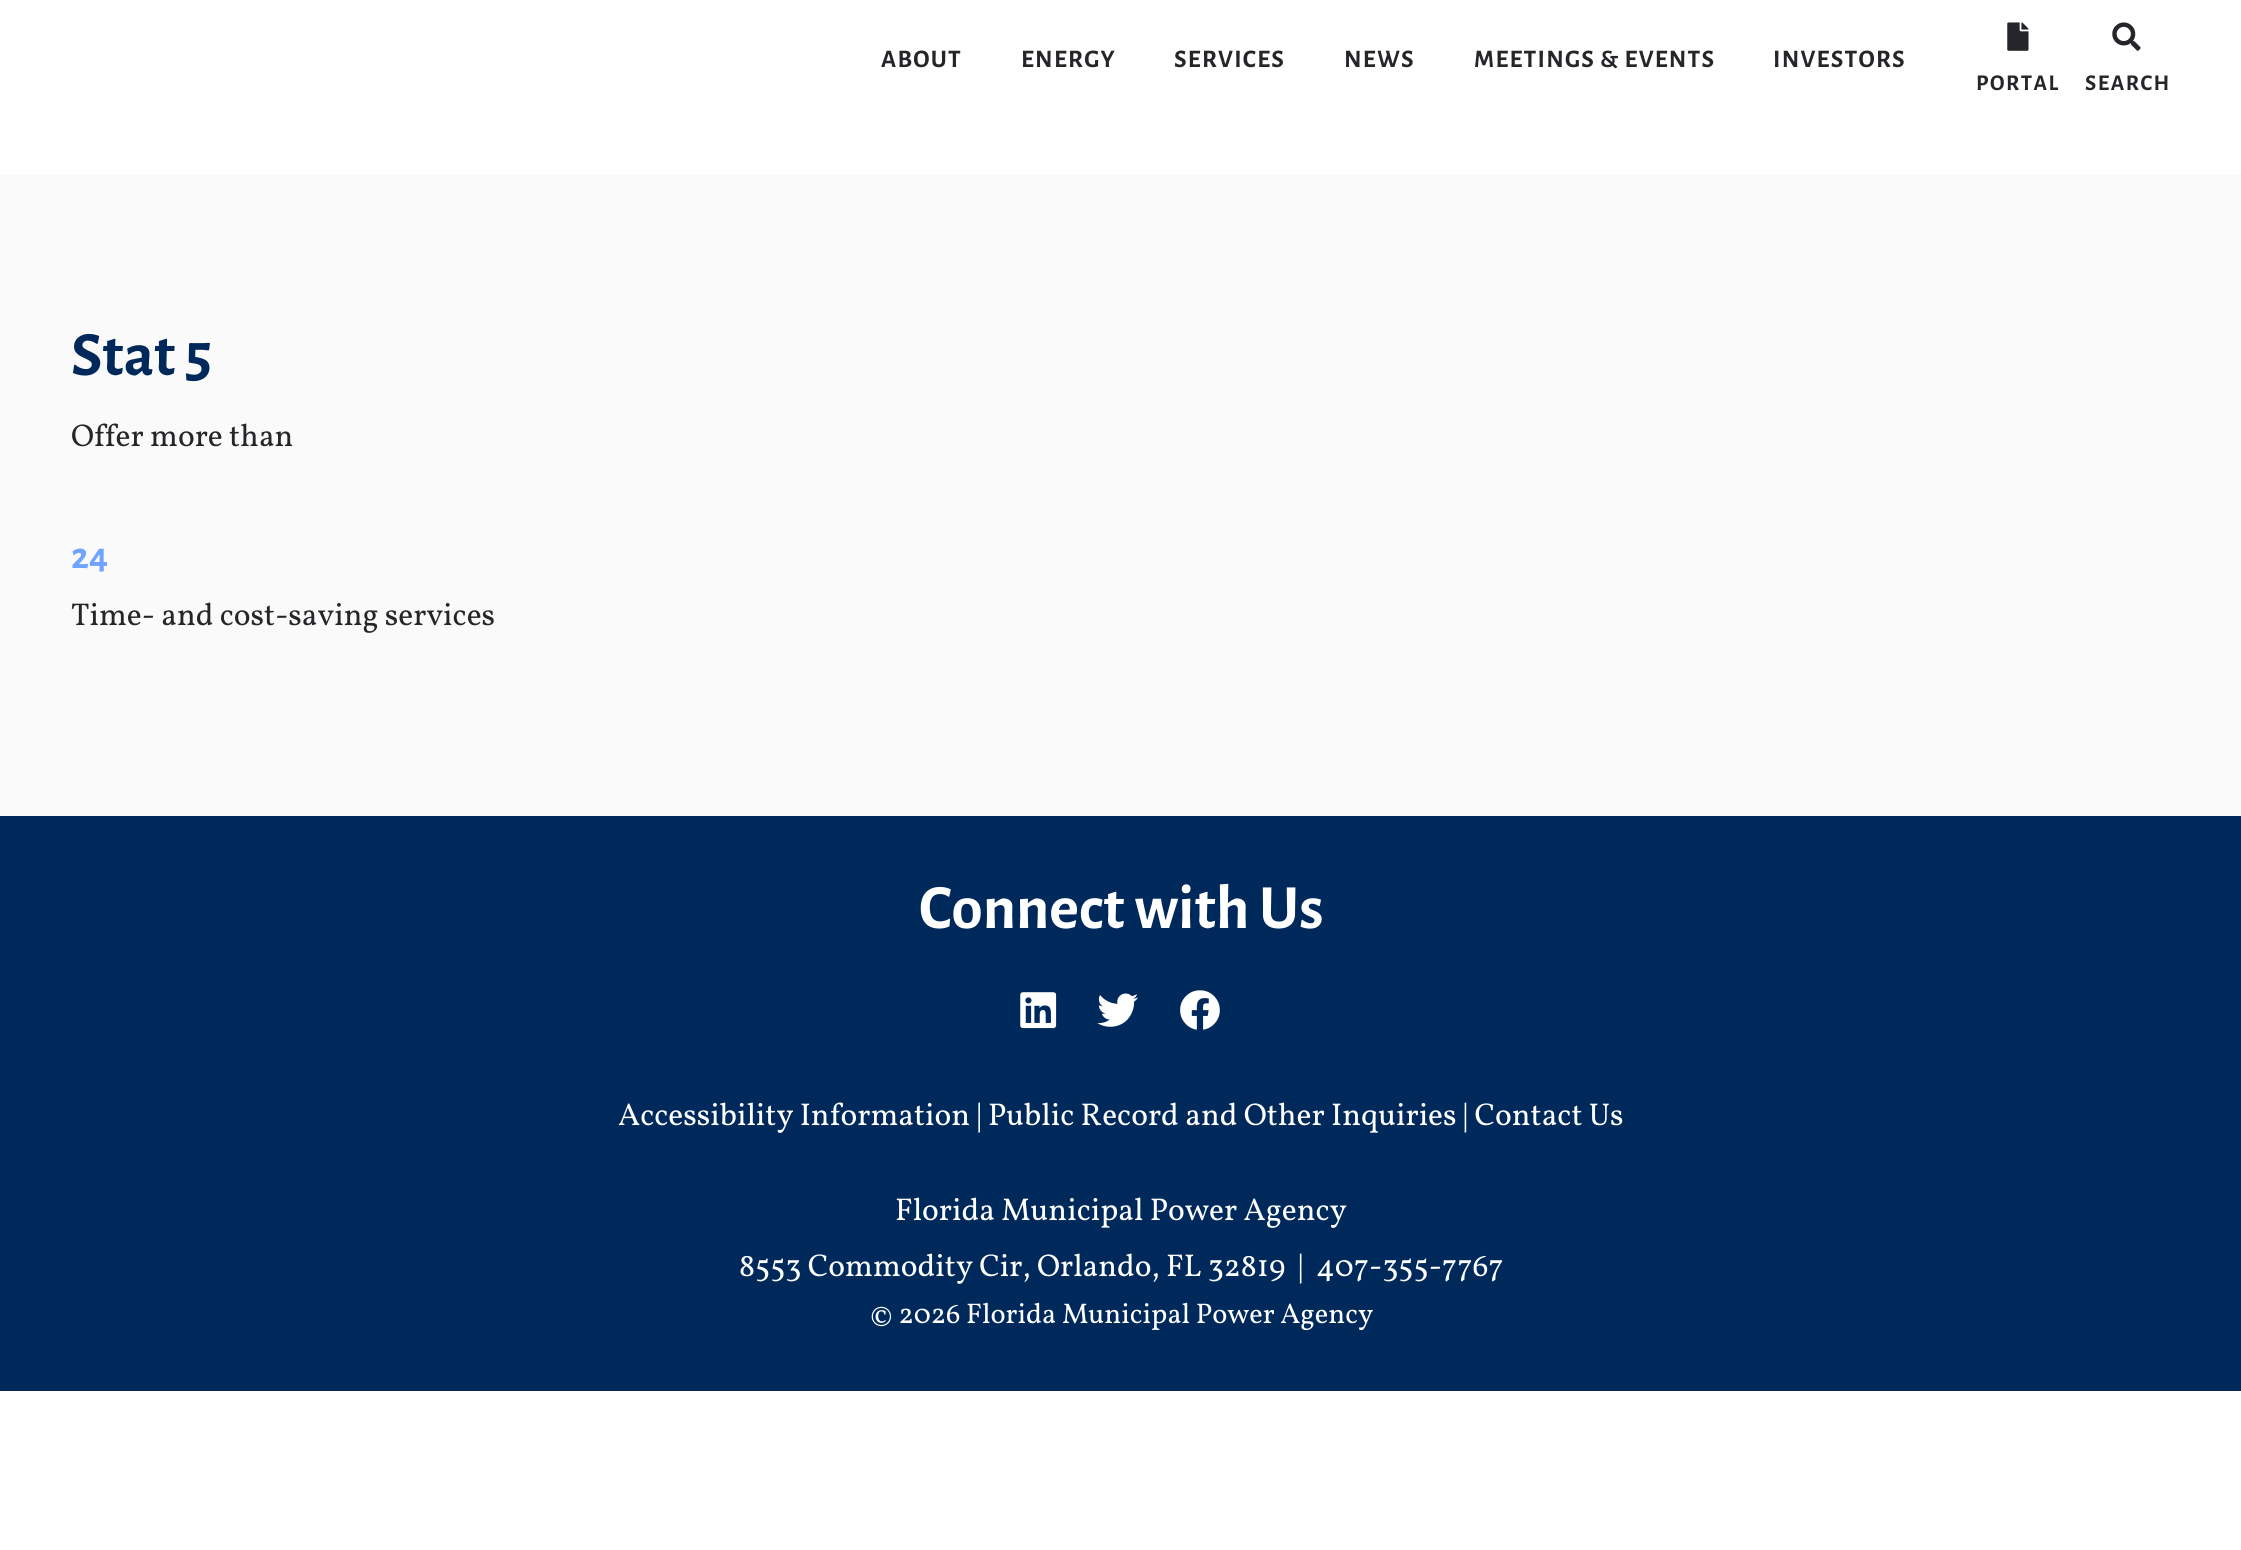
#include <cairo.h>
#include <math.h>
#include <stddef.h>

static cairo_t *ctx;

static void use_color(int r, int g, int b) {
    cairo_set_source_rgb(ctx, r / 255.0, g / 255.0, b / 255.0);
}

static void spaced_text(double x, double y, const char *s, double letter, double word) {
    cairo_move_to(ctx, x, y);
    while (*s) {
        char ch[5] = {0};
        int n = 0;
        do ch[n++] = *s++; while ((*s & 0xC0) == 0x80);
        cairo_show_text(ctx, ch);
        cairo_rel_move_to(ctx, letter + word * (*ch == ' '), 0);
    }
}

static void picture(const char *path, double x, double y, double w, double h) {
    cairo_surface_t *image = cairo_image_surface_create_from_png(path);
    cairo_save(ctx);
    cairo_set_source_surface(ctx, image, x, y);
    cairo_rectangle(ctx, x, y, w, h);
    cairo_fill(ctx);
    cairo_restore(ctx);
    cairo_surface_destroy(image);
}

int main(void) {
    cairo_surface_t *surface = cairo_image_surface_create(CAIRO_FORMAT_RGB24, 2241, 1550);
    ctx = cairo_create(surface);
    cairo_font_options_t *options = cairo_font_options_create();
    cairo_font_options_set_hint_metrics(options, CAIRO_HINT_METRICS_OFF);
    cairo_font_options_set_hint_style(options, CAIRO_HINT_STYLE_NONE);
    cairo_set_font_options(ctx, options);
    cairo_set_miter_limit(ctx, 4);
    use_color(255, 255, 255);
    cairo_paint(ctx);
    cairo_select_font_face(ctx, "Alegreya Sans", CAIRO_FONT_SLANT_NORMAL, CAIRO_FONT_WEIGHT_BOLD);
    cairo_set_font_size(ctx, 25.25);
    use_color(38, 38, 42);
    spaced_text(881, 67, "ABOUT", 1.25, 0);
    spaced_text(1021, 67, "ENERGY", 1.25, 0);
    spaced_text(1174, 67, "SERVICES", 1.25, 0);
    spaced_text(1344, 67, "NEWS", 1.25, 0);
    spaced_text(1474, 67, "MEETINGS & EVENTS", 1.25, 0);
    spaced_text(1773, 67, "INVESTORS", 1.25, 0);
    picture("img1.png", 2007, 22, 22, 29);
    cairo_set_font_size(ctx, 22.5);
    spaced_text(1976, 90, "PORTAL", 1.5, 0);
    picture("img2.png", 2112, 22, 29, 29);
    spaced_text(2085, 90, "SEARCH", 1.5, 0);
    use_color(250, 250, 250);
    cairo_rectangle(ctx, 0, 175, 2241, 641);
    cairo_fill(ctx);
    cairo_set_font_size(ctx, 63);
    use_color(0, 41, 91);
    cairo_move_to(ctx, 71, 375);
    cairo_show_text(ctx, "Stat 5");
    cairo_select_font_face(ctx, "Vollkorn", CAIRO_FONT_SLANT_NORMAL, CAIRO_FONT_WEIGHT_NORMAL);
    cairo_set_font_size(ctx, 31.5);
    use_color(38, 38, 42);
    cairo_move_to(ctx, 71, 446);
    cairo_show_text(ctx, "Offer more than");
    cairo_select_font_face(ctx, "Alegreya Sans", CAIRO_FONT_SLANT_NORMAL, CAIRO_FONT_WEIGHT_BOLD);
    cairo_set_font_size(ctx, 38);
    use_color(112, 163, 255);
    cairo_move_to(ctx, 71, 568);
    cairo_show_text(ctx, "24");
    cairo_select_font_face(ctx, "Vollkorn", CAIRO_FONT_SLANT_NORMAL, CAIRO_FONT_WEIGHT_NORMAL);
    cairo_set_font_size(ctx, 31.5);
    use_color(38, 38, 42);
    cairo_move_to(ctx, 71, 625);
    cairo_show_text(ctx, "Time- and cost-saving services");
    use_color(0, 41, 91);
    cairo_rectangle(ctx, 0, 816, 2241, 575);
    cairo_fill(ctx);
    cairo_select_font_face(ctx, "Alegreya Sans", CAIRO_FONT_SLANT_NORMAL, CAIRO_FONT_WEIGHT_BOLD);
    cairo_set_font_size(ctx, 63);
    use_color(255, 255, 255);
    cairo_move_to(ctx, 919, 928);
    cairo_show_text(ctx, "Connect with Us");
    picture("img3.png", 1020, 992, 37, 37);
    picture("img4.png", 1097, 993, 41, 34);
    picture("img5.png", 1180, 990, 40, 40);
    cairo_select_font_face(ctx, "Vollkorn", CAIRO_FONT_SLANT_NORMAL, CAIRO_FONT_WEIGHT_NORMAL);
    cairo_set_font_size(ctx, 31.5);
    cairo_move_to(ctx, 618, 1125);
    cairo_show_text(ctx, "Accessibility Information | Public Record and Other Inquiries | Contact Us");
    cairo_move_to(ctx, 895, 1220);
    cairo_show_text(ctx, "Florida Municipal Power Agency");
    cairo_move_to(ctx, 739, 1276);
    cairo_show_text(ctx, "8553 Commodity Cir, Orlando, FL 32819");
    cairo_move_to(ctx, 1298, 1276);
    cairo_show_text(ctx, "|");
    cairo_move_to(ctx, 1316, 1276);
    cairo_show_text(ctx, "407-355-7767");
    cairo_set_font_size(ctx, 28.4);
    cairo_move_to(ctx, 870, 1323);
    cairo_show_text(ctx, "© 2026 Florida Municipal Power Agency");
    cairo_surface_write_to_png(surface, "result.png");
    cairo_font_options_destroy(options);
    cairo_destroy(ctx);
    cairo_surface_destroy(surface);
    return 0;
}
